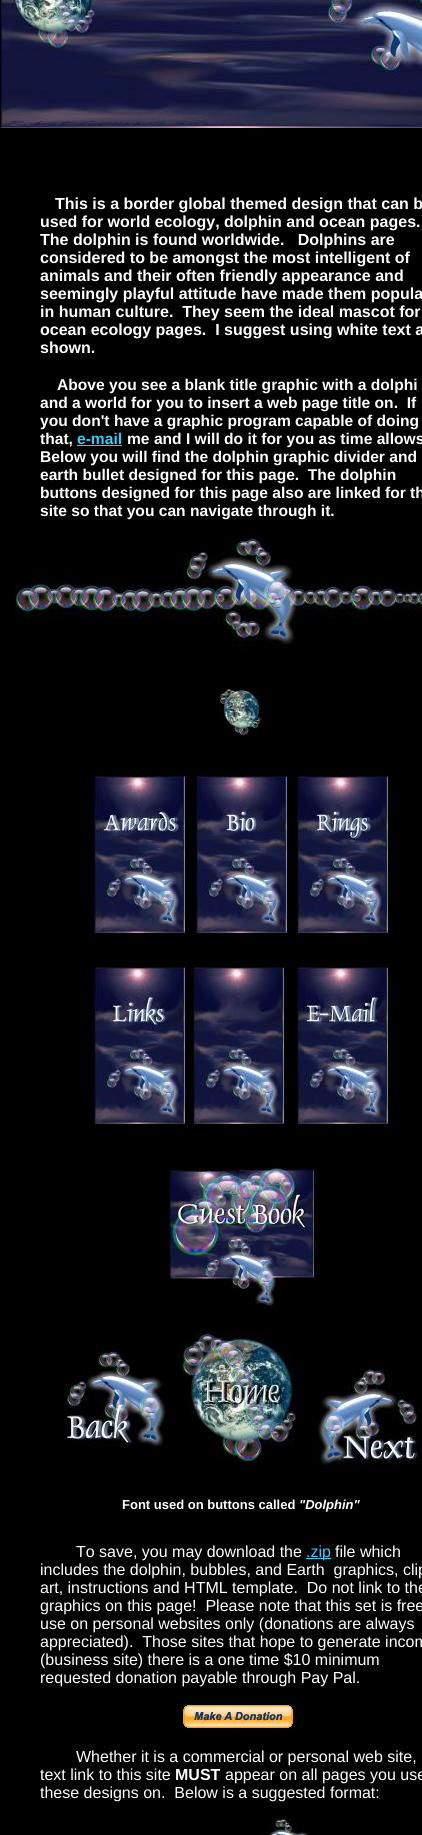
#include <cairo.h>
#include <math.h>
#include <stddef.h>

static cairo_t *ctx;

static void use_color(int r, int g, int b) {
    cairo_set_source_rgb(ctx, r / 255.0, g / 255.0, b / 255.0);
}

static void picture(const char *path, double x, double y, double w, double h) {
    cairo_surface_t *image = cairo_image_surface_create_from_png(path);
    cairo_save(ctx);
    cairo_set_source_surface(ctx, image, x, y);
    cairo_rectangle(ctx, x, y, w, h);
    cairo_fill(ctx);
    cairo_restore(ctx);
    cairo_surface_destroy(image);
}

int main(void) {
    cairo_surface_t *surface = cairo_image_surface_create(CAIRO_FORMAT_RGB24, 422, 1835);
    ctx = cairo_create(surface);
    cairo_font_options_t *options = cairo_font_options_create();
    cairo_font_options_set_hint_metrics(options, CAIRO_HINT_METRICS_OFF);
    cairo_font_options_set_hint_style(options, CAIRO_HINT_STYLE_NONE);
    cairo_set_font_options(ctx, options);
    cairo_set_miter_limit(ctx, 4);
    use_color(0, 0, 0);
    cairo_paint(ctx);
    picture("img1.png", 0, 0, 422, 128);
    cairo_select_font_face(ctx, "Liberation Sans", CAIRO_FONT_SLANT_NORMAL, CAIRO_FONT_WEIGHT_BOLD);
    cairo_set_font_size(ctx, 16);
    use_color(255, 255, 255);
    cairo_move_to(ctx, 55, 209);
    cairo_show_text(ctx, "This is a border global themed design that can b");
    cairo_move_to(ctx, 40, 227);
    cairo_show_text(ctx, "used for world ecology, dolphin and ocean pages.");
    cairo_move_to(ctx, 40, 245);
    cairo_show_text(ctx, "The dolphin is found worldwide.   Dolphins are");
    cairo_move_to(ctx, 40, 263);
    cairo_show_text(ctx, "considered to be amongst the most intelligent of");
    cairo_move_to(ctx, 40, 281);
    cairo_show_text(ctx, "animals and their often friendly appearance and");
    cairo_move_to(ctx, 40, 299);
    cairo_show_text(ctx, "seemingly playful attitude have made them popula");
    cairo_move_to(ctx, 40, 317);
    cairo_show_text(ctx, "in human culture.  They seem the ideal mascot for");
    cairo_move_to(ctx, 40, 335);
    cairo_show_text(ctx, "ocean ecology pages.  I suggest using white text a");
    cairo_move_to(ctx, 40, 353);
    cairo_show_text(ctx, "shown.");
    cairo_set_font_size(ctx, 15.6);
    cairo_move_to(ctx, 57, 390);
    cairo_show_text(ctx, "Above you see a blank title graphic with a dolphi");
    cairo_move_to(ctx, 40, 408);
    cairo_show_text(ctx, "and a world for you to insert a web page title on.  If");
    cairo_move_to(ctx, 40, 426);
    cairo_show_text(ctx, "you don't have a graphic program capable of doing");
    cairo_move_to(ctx, 40, 444);
    cairo_show_text(ctx, "that,");
    use_color(51, 204, 255);
    cairo_move_to(ctx, 77, 444);
    cairo_show_text(ctx, "e-mail");
    cairo_rectangle(ctx, 77, 445, 45, 1);
    cairo_fill(ctx);
    use_color(255, 255, 255);
    cairo_move_to(ctx, 127, 444);
    cairo_show_text(ctx, "me and I will do it for you as time allows");
    cairo_move_to(ctx, 40, 462);
    cairo_show_text(ctx, "Below you will find the dolphin graphic divider and");
    cairo_move_to(ctx, 40, 480);
    cairo_show_text(ctx, "earth bullet designed for this page.  The dolphin");
    cairo_move_to(ctx, 40, 498);
    cairo_show_text(ctx, "buttons designed for this page also are linked for th");
    cairo_move_to(ctx, 40, 516);
    cairo_show_text(ctx, "site so that you can navigate through it.");
    picture("img2.png", 15, 538, 407, 112);
    picture("img3.png", 219, 688, 44, 48);
    picture("img4.png", 94, 776, 91, 157);
    picture("img5.png", 196, 776, 91, 157);
    picture("img6.png", 297, 776, 91, 157);
    picture("img7.png", 94, 967, 91, 157);
    picture("img8.png", 193, 967, 91, 157);
    picture("img9.png", 297, 967, 91, 157);
    picture("img10.png", 169, 1168, 145, 143);
    picture("img11.png", 66, 1351, 100, 96);
    picture("img12.png", 182, 1333, 119, 129);
    picture("img13.png", 312, 1369, 109, 96);
    cairo_set_font_size(ctx, 13);
    cairo_move_to(ctx, 122, 1509);
    cairo_show_text(ctx, "Font used on buttons called");
    cairo_select_font_face(ctx, "Liberation Sans", CAIRO_FONT_SLANT_ITALIC, CAIRO_FONT_WEIGHT_BOLD);
    cairo_move_to(ctx, 299, 1509);
    cairo_show_text(ctx, "\"Dolphin\"");
    cairo_select_font_face(ctx, "Liberation Sans", CAIRO_FONT_SLANT_NORMAL, CAIRO_FONT_WEIGHT_NORMAL);
    cairo_set_font_size(ctx, 16);
    cairo_move_to(ctx, 76, 1557);
    cairo_show_text(ctx, "To save, you may download the");
    use_color(51, 204, 255);
    cairo_rectangle(ctx, 306, 1558, 25, 1);
    cairo_fill(ctx);
    cairo_move_to(ctx, 306, 1557);
    cairo_show_text(ctx, ".zip");
    use_color(255, 255, 255);
    cairo_move_to(ctx, 335, 1557);
    cairo_show_text(ctx, "file which");
    cairo_move_to(ctx, 40, 1575);
    cairo_show_text(ctx, "includes the dolphin, bubbles, and Earth  graphics, clip");
    cairo_move_to(ctx, 40, 1593);
    cairo_show_text(ctx, "art, instructions and HTML template.  Do not link to the");
    cairo_move_to(ctx, 40, 1611);
    cairo_show_text(ctx, "graphics on this page!  Please note that this set is free");
    cairo_move_to(ctx, 40, 1629);
    cairo_show_text(ctx, "use on personal websites only (donations are always");
    cairo_move_to(ctx, 40, 1647);
    cairo_show_text(ctx, "appreciated).  Those sites that hope to generate incom");
    cairo_move_to(ctx, 40, 1665);
    cairo_show_text(ctx, "(business site) there is a one time $10 minimum");
    cairo_move_to(ctx, 40, 1683);
    cairo_show_text(ctx, "requested donation payable through Pay Pal.");
    picture("img14.png", 183, 1705, 110, 23);
    cairo_move_to(ctx, 76, 1762);
    cairo_show_text(ctx, "Whether it is a commercial or personal web site,");
    cairo_move_to(ctx, 40, 1780);
    cairo_show_text(ctx, "text link to this site");
    cairo_select_font_face(ctx, "Liberation Sans", CAIRO_FONT_SLANT_NORMAL, CAIRO_FONT_WEIGHT_BOLD);
    cairo_move_to(ctx, 175, 1780);
    cairo_show_text(ctx, "MUST");
    cairo_select_font_face(ctx, "Liberation Sans", CAIRO_FONT_SLANT_NORMAL, CAIRO_FONT_WEIGHT_NORMAL);
    cairo_move_to(ctx, 225, 1780);
    cairo_show_text(ctx, "appear on all pages you use");
    cairo_move_to(ctx, 40, 1798);
    cairo_show_text(ctx, "these designs on.  Below is a suggested format:");
    picture("img15.png", 259, 1818, 49, 17);
    cairo_surface_write_to_png(surface, "result.png");
    cairo_font_options_destroy(options);
    cairo_destroy(ctx);
    cairo_surface_destroy(surface);
    return 0;
}
